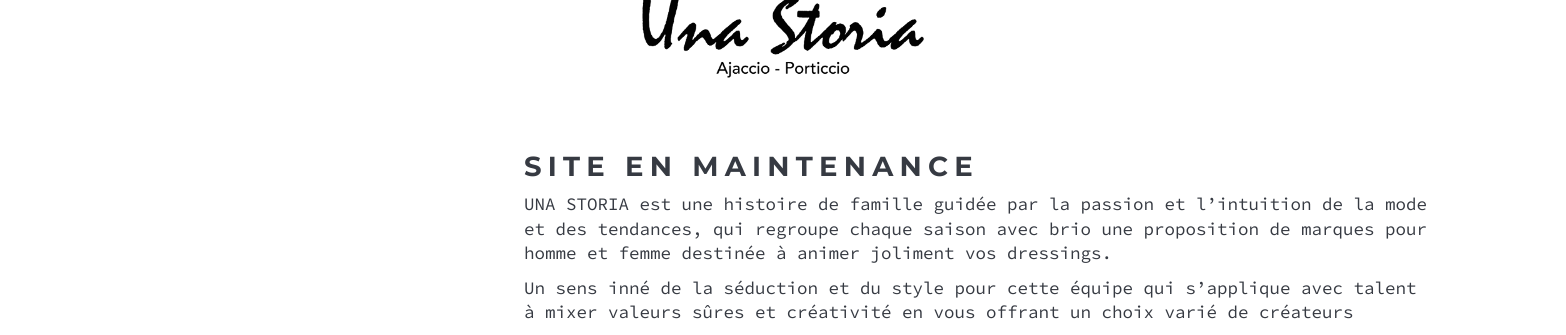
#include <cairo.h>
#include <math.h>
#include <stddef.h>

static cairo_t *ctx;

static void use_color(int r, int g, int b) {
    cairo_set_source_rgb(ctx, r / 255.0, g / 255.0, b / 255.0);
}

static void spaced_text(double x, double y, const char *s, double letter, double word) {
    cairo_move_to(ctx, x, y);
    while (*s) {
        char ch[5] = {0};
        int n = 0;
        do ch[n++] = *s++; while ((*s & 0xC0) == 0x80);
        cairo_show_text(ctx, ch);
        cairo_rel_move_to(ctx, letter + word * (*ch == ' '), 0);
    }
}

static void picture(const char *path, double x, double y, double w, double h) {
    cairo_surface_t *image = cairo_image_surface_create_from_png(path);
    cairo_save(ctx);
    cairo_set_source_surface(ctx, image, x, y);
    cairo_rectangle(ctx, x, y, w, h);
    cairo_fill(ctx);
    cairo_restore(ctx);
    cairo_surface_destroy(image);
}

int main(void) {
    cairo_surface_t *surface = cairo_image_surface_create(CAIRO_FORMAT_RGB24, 1566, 335);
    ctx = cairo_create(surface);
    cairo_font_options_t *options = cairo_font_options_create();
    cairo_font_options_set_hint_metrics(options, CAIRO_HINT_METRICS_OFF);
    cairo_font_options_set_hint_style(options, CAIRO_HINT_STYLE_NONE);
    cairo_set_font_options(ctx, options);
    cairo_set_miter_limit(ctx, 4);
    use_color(255, 255, 255);
    cairo_paint(ctx);
    picture("img1.png", 642, 0, 282, 78);
    cairo_select_font_face(ctx, "Montserrat", CAIRO_FONT_SLANT_NORMAL, CAIRO_FONT_WEIGHT_BOLD);
    cairo_set_font_size(ctx, 27.5);
    use_color(54, 58, 66);
    spaced_text(524, 176, "SITE EN MAINTENANCE", 6.25, 0);
    cairo_select_font_face(ctx, "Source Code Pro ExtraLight", CAIRO_FONT_SLANT_NORMAL, CAIRO_FONT_WEIGHT_NORMAL);
    cairo_set_font_size(ctx, 17.5);
    cairo_move_to(ctx, 524, 210);
    cairo_show_text(ctx, "UNA STORIA est une histoire de famille guidée par la passion et l’intuition de la mode");
    cairo_move_to(ctx, 524, 235);
    cairo_show_text(ctx, "et des tendances, qui regroupe chaque saison avec brio une proposition de marques pour");
    cairo_move_to(ctx, 524, 259);
    cairo_show_text(ctx, "homme et femme destinée à animer joliment vos dressings.");
    cairo_move_to(ctx, 524, 294);
    cairo_show_text(ctx, "Un sens inné de la séduction et du style pour cette équipe qui s’applique avec talent");
    cairo_move_to(ctx, 524, 318);
    cairo_show_text(ctx, "à mixer valeurs sûres et créativité en vous offrant un choix varié de créateurs");
    cairo_surface_write_to_png(surface, "result.png");
    cairo_font_options_destroy(options);
    cairo_destroy(ctx);
    cairo_surface_destroy(surface);
    return 0;
}
